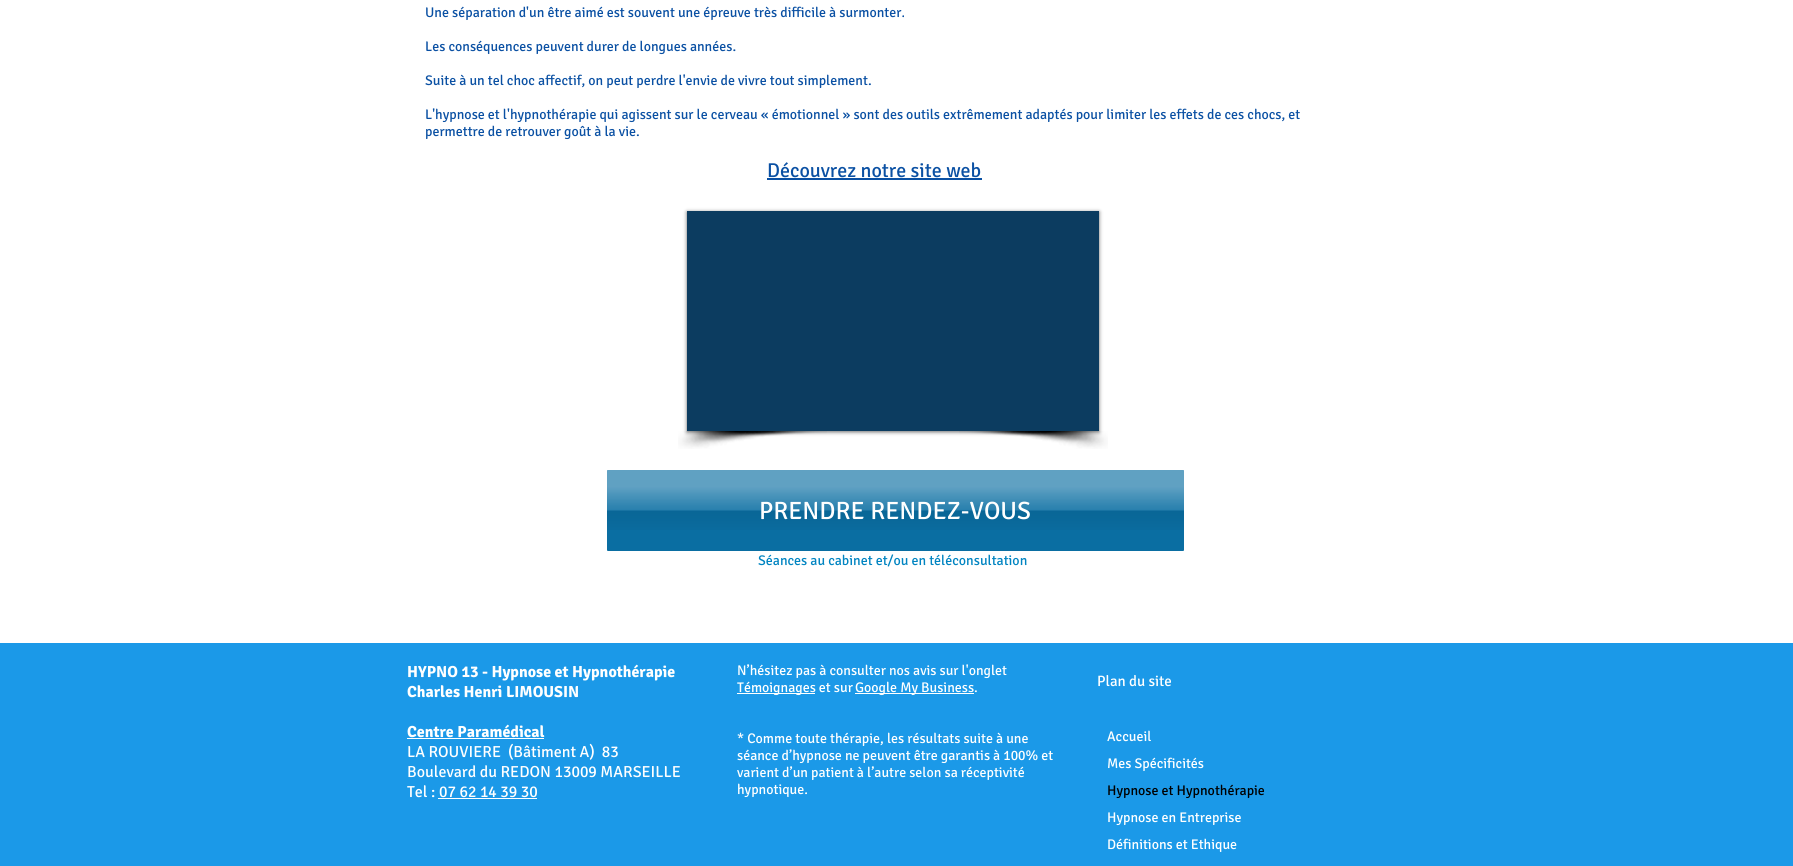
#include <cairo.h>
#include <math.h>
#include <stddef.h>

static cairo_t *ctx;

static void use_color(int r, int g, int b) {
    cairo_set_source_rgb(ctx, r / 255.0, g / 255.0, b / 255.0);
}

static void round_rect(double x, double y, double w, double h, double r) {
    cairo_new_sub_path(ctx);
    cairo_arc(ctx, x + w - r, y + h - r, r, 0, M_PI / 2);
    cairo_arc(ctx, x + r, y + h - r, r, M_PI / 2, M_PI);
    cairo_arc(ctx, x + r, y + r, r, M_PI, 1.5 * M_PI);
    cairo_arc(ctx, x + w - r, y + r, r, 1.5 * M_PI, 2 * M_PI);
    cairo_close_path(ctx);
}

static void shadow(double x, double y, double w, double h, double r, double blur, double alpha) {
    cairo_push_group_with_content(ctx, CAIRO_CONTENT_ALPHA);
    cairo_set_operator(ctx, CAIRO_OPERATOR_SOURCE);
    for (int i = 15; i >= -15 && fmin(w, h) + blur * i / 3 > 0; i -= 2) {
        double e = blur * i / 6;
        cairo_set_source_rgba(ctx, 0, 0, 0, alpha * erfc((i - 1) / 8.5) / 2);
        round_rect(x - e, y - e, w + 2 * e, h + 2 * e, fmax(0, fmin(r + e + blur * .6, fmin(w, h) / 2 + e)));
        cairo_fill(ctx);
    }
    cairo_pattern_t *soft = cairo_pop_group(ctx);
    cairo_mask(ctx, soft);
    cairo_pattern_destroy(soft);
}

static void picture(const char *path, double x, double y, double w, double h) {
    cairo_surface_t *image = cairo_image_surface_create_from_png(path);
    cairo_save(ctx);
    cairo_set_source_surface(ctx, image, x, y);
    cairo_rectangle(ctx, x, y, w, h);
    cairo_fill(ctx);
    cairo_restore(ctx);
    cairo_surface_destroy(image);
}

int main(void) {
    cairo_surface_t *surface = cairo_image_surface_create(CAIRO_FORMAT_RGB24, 1793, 866);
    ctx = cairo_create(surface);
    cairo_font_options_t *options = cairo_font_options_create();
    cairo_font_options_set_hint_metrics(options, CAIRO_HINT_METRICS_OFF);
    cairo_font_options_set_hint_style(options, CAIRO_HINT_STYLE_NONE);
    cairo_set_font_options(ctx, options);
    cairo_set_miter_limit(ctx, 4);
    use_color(255, 255, 255);
    cairo_paint(ctx);
    cairo_select_font_face(ctx, "Signika", CAIRO_FONT_SLANT_NORMAL, CAIRO_FONT_WEIGHT_NORMAL);
    cairo_set_font_size(ctx, 14);
    use_color(10, 80, 163);
    cairo_move_to(ctx, 425, 17);
    cairo_show_text(ctx, "Une séparation d'un être aimé est souvent une épreuve très difficile à surmonter.");
    cairo_move_to(ctx, 425, 51);
    cairo_show_text(ctx, "Les conséquences peuvent durer de longues années.");
    cairo_move_to(ctx, 425, 85);
    cairo_show_text(ctx, "Suite à un tel choc affectif, on peut perdre l'envie de vivre tout simplement.");
    cairo_move_to(ctx, 425, 119);
    cairo_show_text(ctx, "L'hypnose et l'hypnothérapie qui agissent sur le cerveau « émotionnel » sont des outils extrêmement adaptés pour limiter les effets de ces chocs, et");
    cairo_move_to(ctx, 425, 136);
    cairo_show_text(ctx, "permettre de retrouver goût à la vie.");
    cairo_set_font_size(ctx, 20);
    cairo_move_to(ctx, 767, 177);
    cairo_show_text(ctx, "Découvrez notre site web");
    cairo_rectangle(ctx, 767, 178, 215, 2);
    cairo_fill(ctx);
    use_color(0, 0, 0);
    shadow(687, 212, 412, 220, 0, 2, 0.6);
    use_color(12, 60, 96);
    cairo_rectangle(ctx, 687, 211, 412, 220);
    cairo_fill(ctx);
    picture("img1.png", 678, 431, 149, 18);
    picture("img2.png", 959, 431, 149, 18);
    use_color(10, 110, 162);
    round_rect(607, 470, 577, 81, 1);
    cairo_fill(ctx);
    picture("img3.png", 607, 470, 577, 60);
    cairo_set_font_size(ctx, 25);
    use_color(255, 255, 255);
    cairo_move_to(ctx, 759, 519);
    cairo_show_text(ctx, "PRENDRE RENDEZ-VOUS");
    cairo_set_font_size(ctx, 14);
    use_color(0, 132, 193);
    cairo_move_to(ctx, 758, 565);
    cairo_show_text(ctx, "Séances au cabinet et/ou en téléconsultation");
    use_color(27, 153, 232);
    cairo_rectangle(ctx, 0, 643, 1793, 223);
    cairo_fill(ctx);
    cairo_select_font_face(ctx, "Signika", CAIRO_FONT_SLANT_NORMAL, CAIRO_FONT_WEIGHT_BOLD);
    cairo_set_font_size(ctx, 16);
    use_color(255, 255, 255);
    cairo_move_to(ctx, 407, 677);
    cairo_show_text(ctx, "HYPNO 13 - Hypnose et Hypnothérapie");
    cairo_move_to(ctx, 407, 697);
    cairo_show_text(ctx, "Charles Henri LIMOUSIN");
    cairo_move_to(ctx, 407, 737);
    cairo_show_text(ctx, "Centre Paramédical");
    cairo_rectangle(ctx, 407, 738, 137, 1);
    cairo_fill(ctx);
    cairo_select_font_face(ctx, "Signika", CAIRO_FONT_SLANT_NORMAL, CAIRO_FONT_WEIGHT_NORMAL);
    cairo_move_to(ctx, 407, 757);
    cairo_show_text(ctx, "LA ROUVIERE  (Bâtiment A)  83");
    cairo_move_to(ctx, 407, 777);
    cairo_show_text(ctx, "Boulevard du REDON 13009 MARSEILLE");
    cairo_move_to(ctx, 407, 797);
    cairo_show_text(ctx, "Tel : 07 62 14 39 30");
    cairo_rectangle(ctx, 438, 798, 99, 1);
    cairo_fill(ctx);
    cairo_set_font_size(ctx, 14);
    cairo_move_to(ctx, 737, 675);
    cairo_show_text(ctx, "N’hésitez pas à consulter nos avis sur l'onglet");
    cairo_rectangle(ctx, 737, 693, 78, 1);
    cairo_fill(ctx);
    cairo_move_to(ctx, 737, 692);
    cairo_show_text(ctx, "Témoignages et sur");
    cairo_rectangle(ctx, 855, 693, 119, 1);
    cairo_fill(ctx);
    cairo_move_to(ctx, 855, 692);
    cairo_show_text(ctx, "Google My Business.");
    cairo_move_to(ctx, 737, 743);
    cairo_show_text(ctx, "* Comme toute thérapie, les résultats suite à une");
    cairo_move_to(ctx, 737, 760);
    cairo_show_text(ctx, "séance d’hypnose ne peuvent être garantis à 100% et");
    cairo_move_to(ctx, 737, 777);
    cairo_show_text(ctx, "varient d’un patient à l’autre selon sa réceptivité");
    cairo_move_to(ctx, 737, 794);
    cairo_show_text(ctx, "hypnotique.");
    cairo_set_font_size(ctx, 15);
    cairo_move_to(ctx, 1097, 686);
    cairo_show_text(ctx, "Plan du site");
    cairo_set_font_size(ctx, 14);
    cairo_move_to(ctx, 1107, 741);
    cairo_show_text(ctx, "Accueil");
    cairo_move_to(ctx, 1107, 768);
    cairo_show_text(ctx, "Mes Spécificités");
    use_color(0, 0, 0);
    cairo_move_to(ctx, 1107, 795);
    cairo_show_text(ctx, "Hypnose et Hypnothérapie");
    use_color(255, 255, 255);
    cairo_move_to(ctx, 1107, 822);
    cairo_show_text(ctx, "Hypnose en Entreprise");
    cairo_move_to(ctx, 1107, 849);
    cairo_show_text(ctx, "Définitions et Ethique");
    cairo_surface_write_to_png(surface, "result.png");
    cairo_font_options_destroy(options);
    cairo_destroy(ctx);
    cairo_surface_destroy(surface);
    return 0;
}
